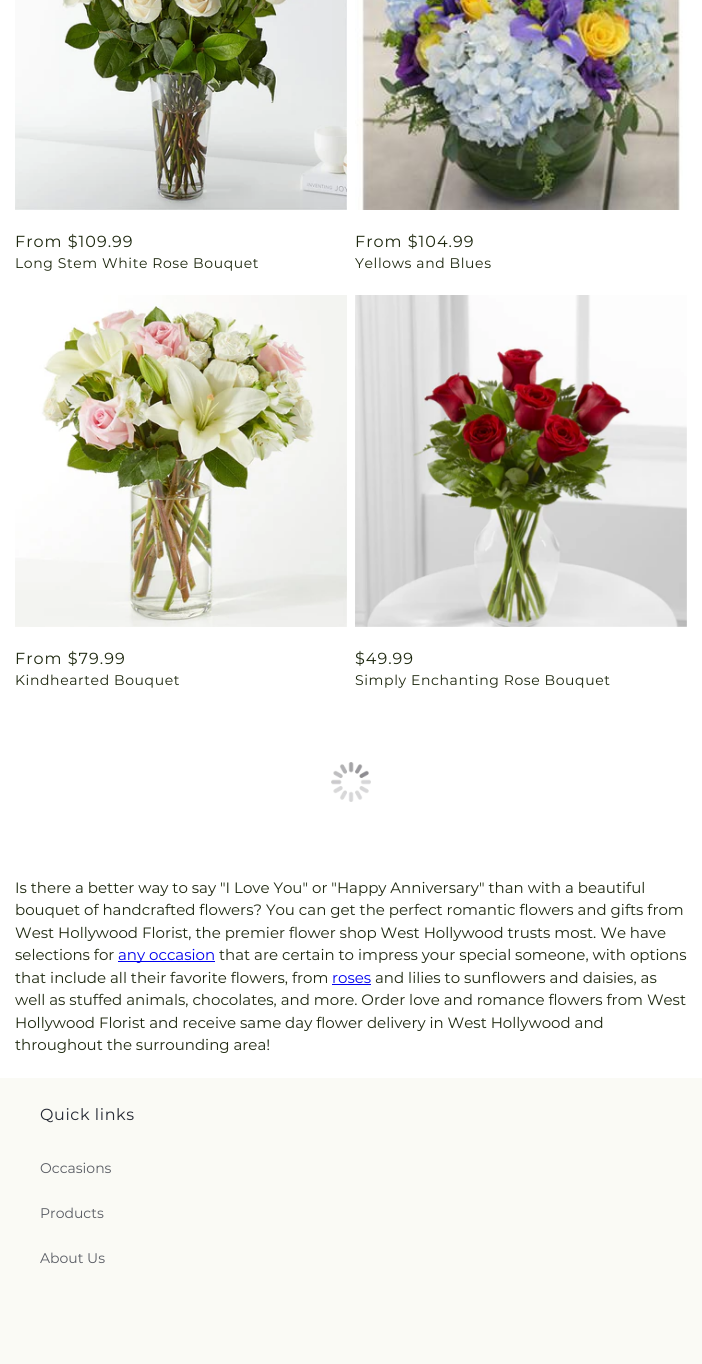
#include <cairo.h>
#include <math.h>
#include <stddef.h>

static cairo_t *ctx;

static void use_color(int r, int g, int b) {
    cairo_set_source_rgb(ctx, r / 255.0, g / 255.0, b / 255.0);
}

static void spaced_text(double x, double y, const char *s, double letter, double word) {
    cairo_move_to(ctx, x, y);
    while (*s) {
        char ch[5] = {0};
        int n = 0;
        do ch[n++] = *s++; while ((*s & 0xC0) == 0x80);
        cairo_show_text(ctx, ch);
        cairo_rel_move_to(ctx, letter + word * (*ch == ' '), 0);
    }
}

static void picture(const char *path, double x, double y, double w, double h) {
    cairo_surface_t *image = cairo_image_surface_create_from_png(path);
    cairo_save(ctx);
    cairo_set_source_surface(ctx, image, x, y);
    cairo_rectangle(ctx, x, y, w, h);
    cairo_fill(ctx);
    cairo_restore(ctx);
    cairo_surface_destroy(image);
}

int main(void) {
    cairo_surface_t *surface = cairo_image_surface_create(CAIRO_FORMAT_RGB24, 702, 1364);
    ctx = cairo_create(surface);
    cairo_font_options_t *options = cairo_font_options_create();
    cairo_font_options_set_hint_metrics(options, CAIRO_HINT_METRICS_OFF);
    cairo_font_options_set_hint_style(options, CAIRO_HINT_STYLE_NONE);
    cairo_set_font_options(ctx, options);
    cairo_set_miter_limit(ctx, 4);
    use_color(255, 255, 255);
    cairo_paint(ctx);
    picture("img1.png", 15, 0, 332, 210);
    cairo_select_font_face(ctx, "Montserrat", CAIRO_FONT_SLANT_NORMAL, CAIRO_FONT_WEIGHT_NORMAL);
    cairo_set_font_size(ctx, 16);
    use_color(30, 40, 15);
    spaced_text(15, 247, "From $109.99", 1, 0);
    cairo_set_font_size(ctx, 14);
    spaced_text(15, 268, "Long Stem White Rose Bouquet", 0.6, 0);
    picture("img2.png", 355, 0, 332, 210);
    cairo_set_font_size(ctx, 16);
    spaced_text(355, 247, "From $104.99", 1, 0);
    cairo_set_font_size(ctx, 14);
    spaced_text(355, 268, "Yellows and Blues", 0.6, 0);
    picture("img3.png", 15, 295, 332, 332);
    cairo_set_font_size(ctx, 16);
    spaced_text(15, 664, "From $79.99", 1, 0);
    cairo_set_font_size(ctx, 14);
    spaced_text(15, 685, "Kindhearted Bouquet", 0.6, 0);
    picture("img4.png", 355, 295, 332, 332);
    cairo_set_font_size(ctx, 16);
    spaced_text(355, 664, "$49.99", 1, 0);
    cairo_set_font_size(ctx, 14);
    spaced_text(355, 685, "Simply Enchanting Rose Bouquet", 0.6, 0);
    picture("img5.png", 331, 762, 40, 40);
    cairo_set_font_size(ctx, 15);
    cairo_move_to(ctx, 15, 893);
    cairo_show_text(ctx, "Is there a better way to say \"I Love You\" or \"Happy Anniversary\" than with a beautiful");
    cairo_move_to(ctx, 15, 915);
    cairo_show_text(ctx, "bouquet of handcrafted flowers? You can get the perfect romantic flowers and gifts from");
    cairo_move_to(ctx, 15, 938);
    cairo_show_text(ctx, "West Hollywood Florist, the premier flower shop West Hollywood trusts most. We have");
    cairo_move_to(ctx, 15, 960);
    cairo_show_text(ctx, "selections for");
    use_color(0, 0, 238);
    cairo_rectangle(ctx, 118, 961, 97, 1);
    cairo_fill(ctx);
    cairo_move_to(ctx, 118, 960);
    cairo_show_text(ctx, "any occasion");
    use_color(30, 40, 15);
    cairo_move_to(ctx, 219, 960);
    cairo_show_text(ctx, "that are certain to impress your special someone, with options");
    cairo_move_to(ctx, 15, 983);
    cairo_show_text(ctx, "that include all their favorite flowers, from");
    use_color(0, 0, 238);
    cairo_move_to(ctx, 332, 983);
    cairo_show_text(ctx, "roses");
    cairo_rectangle(ctx, 332, 984, 39, 1);
    cairo_fill(ctx);
    use_color(30, 40, 15);
    cairo_move_to(ctx, 375, 983);
    cairo_show_text(ctx, "and lilies to sunflowers and daisies, as");
    cairo_move_to(ctx, 15, 1005);
    cairo_show_text(ctx, "well as stuffed animals, chocolates, and more. Order love and romance flowers from West");
    cairo_move_to(ctx, 15, 1028);
    cairo_show_text(ctx, "Hollywood Florist and receive same day flower delivery in West Hollywood and");
    cairo_move_to(ctx, 15, 1050);
    cairo_show_text(ctx, "throughout the surrounding area!");
    use_color(250, 250, 245);
    cairo_rectangle(ctx, 0, 1078, 702, 286);
    cairo_fill(ctx);
    cairo_set_font_size(ctx, 16);
    use_color(36, 40, 51);
    spaced_text(40, 1120, "Quick links", 0.6, 0);
    cairo_set_font_size(ctx, 14);
    use_color(90, 93, 100);
    cairo_move_to(ctx, 40, 1173);
    cairo_show_text(ctx, "Occasions");
    cairo_move_to(ctx, 40, 1218);
    cairo_show_text(ctx, "Products");
    cairo_move_to(ctx, 40, 1263);
    cairo_show_text(ctx, "About Us");
    cairo_surface_write_to_png(surface, "result.png");
    cairo_font_options_destroy(options);
    cairo_destroy(ctx);
    cairo_surface_destroy(surface);
    return 0;
}
